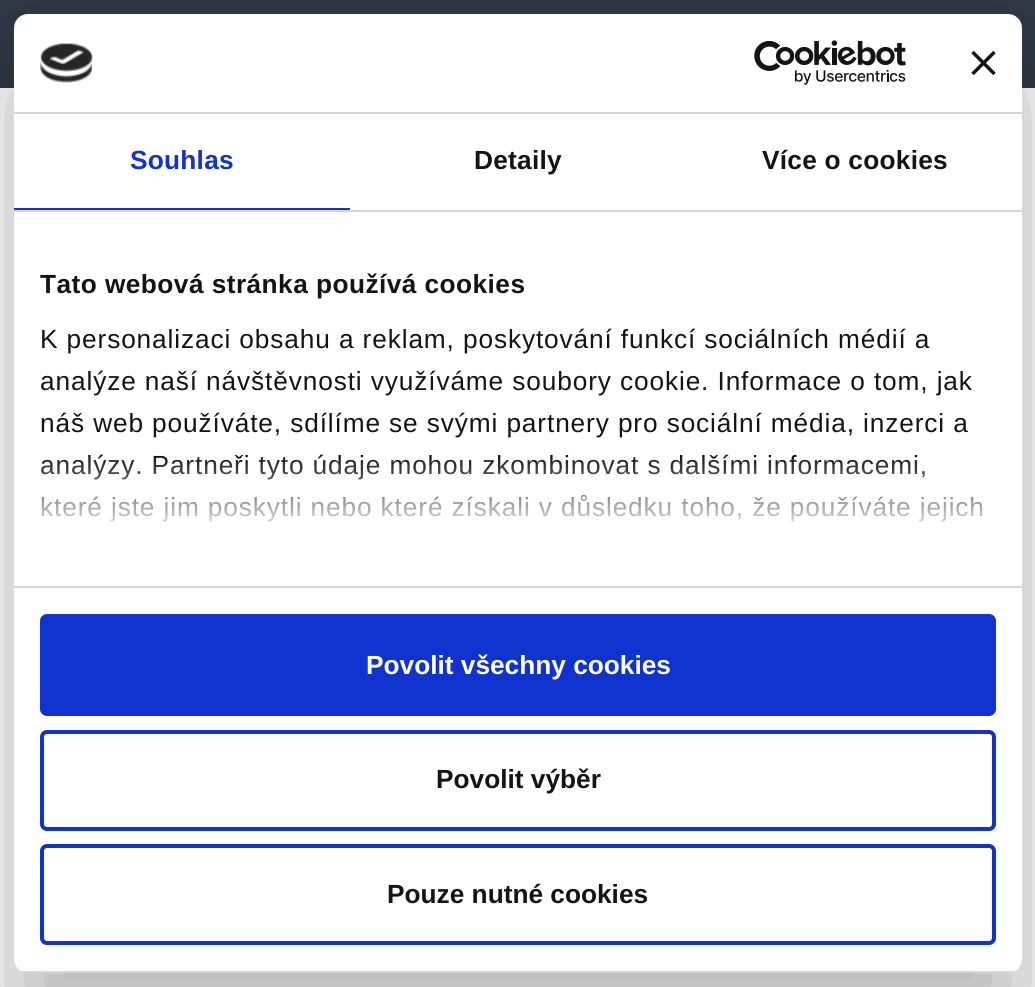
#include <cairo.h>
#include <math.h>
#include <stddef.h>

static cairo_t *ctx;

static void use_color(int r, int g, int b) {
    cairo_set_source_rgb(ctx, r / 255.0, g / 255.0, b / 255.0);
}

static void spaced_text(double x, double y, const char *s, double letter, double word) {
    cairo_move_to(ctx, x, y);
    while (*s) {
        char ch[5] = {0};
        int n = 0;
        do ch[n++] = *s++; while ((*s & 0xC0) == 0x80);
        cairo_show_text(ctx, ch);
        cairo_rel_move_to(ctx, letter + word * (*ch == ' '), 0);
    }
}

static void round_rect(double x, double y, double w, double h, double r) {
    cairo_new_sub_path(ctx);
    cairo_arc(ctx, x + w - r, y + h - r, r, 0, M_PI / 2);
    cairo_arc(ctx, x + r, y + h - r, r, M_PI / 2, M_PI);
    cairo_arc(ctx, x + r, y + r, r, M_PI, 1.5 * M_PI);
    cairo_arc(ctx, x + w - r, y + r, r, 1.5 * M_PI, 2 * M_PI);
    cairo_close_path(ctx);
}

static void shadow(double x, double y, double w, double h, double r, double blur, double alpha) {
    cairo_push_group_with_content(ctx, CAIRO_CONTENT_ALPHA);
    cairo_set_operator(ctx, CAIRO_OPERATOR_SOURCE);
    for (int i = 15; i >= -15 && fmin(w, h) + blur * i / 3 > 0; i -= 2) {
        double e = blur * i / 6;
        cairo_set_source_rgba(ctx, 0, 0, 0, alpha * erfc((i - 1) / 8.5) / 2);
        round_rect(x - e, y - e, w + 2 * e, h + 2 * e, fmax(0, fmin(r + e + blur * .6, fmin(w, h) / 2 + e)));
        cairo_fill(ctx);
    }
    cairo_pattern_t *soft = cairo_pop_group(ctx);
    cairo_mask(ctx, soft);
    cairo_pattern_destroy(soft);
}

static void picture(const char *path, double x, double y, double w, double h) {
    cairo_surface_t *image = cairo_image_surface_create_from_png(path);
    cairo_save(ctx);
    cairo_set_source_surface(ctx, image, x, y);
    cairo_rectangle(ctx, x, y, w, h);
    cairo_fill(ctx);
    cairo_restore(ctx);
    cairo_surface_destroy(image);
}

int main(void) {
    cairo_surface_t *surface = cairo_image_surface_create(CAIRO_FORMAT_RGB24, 1035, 987);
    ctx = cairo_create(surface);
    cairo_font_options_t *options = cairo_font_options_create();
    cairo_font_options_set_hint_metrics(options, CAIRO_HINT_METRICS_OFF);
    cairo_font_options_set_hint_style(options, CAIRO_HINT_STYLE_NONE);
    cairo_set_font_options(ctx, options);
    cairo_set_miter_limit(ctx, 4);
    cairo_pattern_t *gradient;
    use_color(255, 255, 255);
    cairo_paint(ctx);
    use_color(48, 56, 70);
    cairo_rectangle(ctx, 0, 0, 1035, 88);
    cairo_fill(ctx);
    use_color(0, 0, 0);
    shadow(14, 70, 1008, 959, 14, 59.5, 0.3);
    use_color(255, 255, 255);
    round_rect(14, 14, 1008, 959, 14);
    cairo_fill(ctx);
    use_color(214, 214, 214);
    cairo_rectangle(ctx, 14, 112, 1008, 2);
    cairo_fill(ctx);
    picture("img1.png", 40, 43, 53, 40);
    picture("img2.png", 754, 40, 152, 45);
    picture("img3.png", 971, 51, 25, 24);
    cairo_rectangle(ctx, 14, 210, 1008, 2);
    cairo_fill(ctx);
    use_color(16, 50, 207);
    cairo_rectangle(ctx, 14, 208, 336, 2);
    cairo_fill(ctx);
    cairo_select_font_face(ctx, "Liberation Sans", CAIRO_FONT_SLANT_NORMAL, CAIRO_FONT_WEIGHT_BOLD);
    cairo_set_font_size(ctx, 26.25);
    spaced_text(130, 169, "Souhlas", 0.25, 0);
    use_color(20, 20, 20);
    spaced_text(474, 169, "Detaily", 0.25, 0);
    spaced_text(762, 169, "Více o cookies", 0.25, 0);
    use_color(214, 214, 214);
    cairo_rectangle(ctx, 14, 586, 1008, 2);
    cairo_fill(ctx);
    use_color(20, 20, 20);
    spaced_text(40, 293, "Tato webová stránka používá cookies", 0.45, 0);
    cairo_select_font_face(ctx, "Liberation Sans", CAIRO_FONT_SLANT_NORMAL, CAIRO_FONT_WEIGHT_NORMAL);
    spaced_text(40, 348, "K personalizaci obsahu a reklam, poskytování funkcí sociálních médií a", 0.88, 0);
    spaced_text(40, 390, "analýze naší návštěvnosti využíváme soubory cookie. Informace o tom, jak", 0.88, 0);
    spaced_text(40, 432, "náš web používáte, sdílíme se svými partnery pro sociální média, inzerci a", 0.88, 0);
    spaced_text(40, 474, "analýzy. Partneři tyto údaje mohou zkombinovat s dalšími informacemi,", 0.88, 0);
    spaced_text(40, 516, "které jste jim poskytli nebo které získali v důsledku toho, že používáte jejich", 0.88, 0);
    gradient = cairo_pattern_create_linear(507, 586, 507, 455);
    cairo_pattern_add_color_stop_rgba(gradient, 0, 1, 1, 1, 1);
    cairo_pattern_add_color_stop_rgba(gradient, 0.5, 1, 1, 1, 0.8);
    cairo_pattern_add_color_stop_rgba(gradient, 1, 1, 1, 1, 0);
    cairo_set_source(ctx, gradient);
    cairo_pattern_destroy(gradient);
    cairo_rectangle(ctx, 41, 457, 942, 65);
    cairo_fill(ctx);
    cairo_save(ctx);
    round_rect(14, 14, 1008, 959, 14);
    cairo_clip(ctx);
    use_color(214, 214, 214);
    cairo_rectangle(ctx, 14, 971, 1008, 2);
    cairo_fill(ctx);
    cairo_restore(ctx);
    use_color(16, 50, 207);
    round_rect(42, 616, 952, 98, 5);
    cairo_fill_preserve(ctx);
    cairo_set_line_width(ctx, 4);
    cairo_stroke(ctx);
    cairo_select_font_face(ctx, "Liberation Sans", CAIRO_FONT_SLANT_NORMAL, CAIRO_FONT_WEIGHT_BOLD);
    use_color(255, 255, 255);
    cairo_move_to(ctx, 366, 674);
    cairo_show_text(ctx, "Povolit všechny cookies");
    round_rect(42, 732, 952, 97, 5);
    use_color(16, 50, 207);
    cairo_stroke(ctx);
    use_color(20, 20, 20);
    cairo_move_to(ctx, 436, 788);
    cairo_show_text(ctx, "Povolit výběr");
    round_rect(42, 846, 952, 97, 5);
    use_color(16, 50, 207);
    cairo_stroke(ctx);
    use_color(20, 20, 20);
    cairo_move_to(ctx, 387, 903);
    cairo_show_text(ctx, "Pouze nutné cookies");
    cairo_surface_write_to_png(surface, "result.png");
    cairo_font_options_destroy(options);
    cairo_destroy(ctx);
    cairo_surface_destroy(surface);
    return 0;
}
